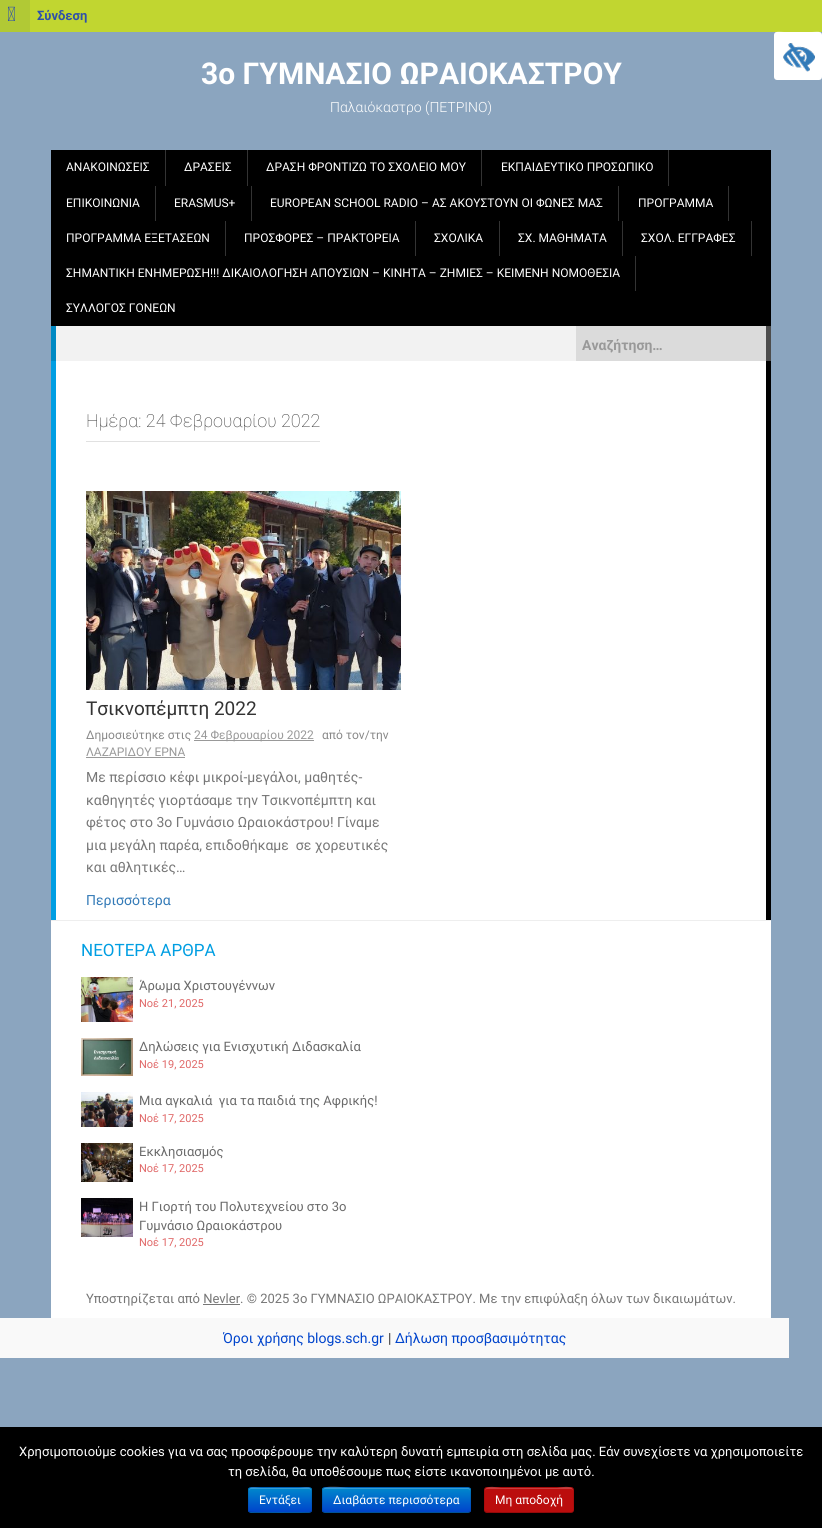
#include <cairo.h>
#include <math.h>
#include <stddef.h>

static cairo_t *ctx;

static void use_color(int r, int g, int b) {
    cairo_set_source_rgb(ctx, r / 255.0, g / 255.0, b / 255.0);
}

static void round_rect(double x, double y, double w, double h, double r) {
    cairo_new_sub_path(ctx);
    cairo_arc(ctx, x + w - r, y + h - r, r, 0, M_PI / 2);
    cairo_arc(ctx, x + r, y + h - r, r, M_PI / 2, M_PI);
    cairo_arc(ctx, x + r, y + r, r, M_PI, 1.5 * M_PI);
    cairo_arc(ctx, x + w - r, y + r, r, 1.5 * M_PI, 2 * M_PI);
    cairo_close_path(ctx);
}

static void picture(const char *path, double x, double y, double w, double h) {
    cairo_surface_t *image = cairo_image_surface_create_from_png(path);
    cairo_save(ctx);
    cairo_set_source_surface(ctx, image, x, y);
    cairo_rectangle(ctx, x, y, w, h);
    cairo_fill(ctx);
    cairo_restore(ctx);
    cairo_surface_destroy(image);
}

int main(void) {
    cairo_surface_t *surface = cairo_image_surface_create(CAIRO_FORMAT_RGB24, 822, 1528);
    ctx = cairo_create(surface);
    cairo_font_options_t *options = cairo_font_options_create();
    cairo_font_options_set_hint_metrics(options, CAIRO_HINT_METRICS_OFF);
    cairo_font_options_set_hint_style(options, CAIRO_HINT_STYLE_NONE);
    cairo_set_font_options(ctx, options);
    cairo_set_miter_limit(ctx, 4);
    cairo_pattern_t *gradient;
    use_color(139, 165, 191);
    cairo_paint(ctx);
    use_color(193, 214, 48);
    cairo_rectangle(ctx, 30, 0, 792, 32);
    cairo_fill(ctx);
    use_color(177, 201, 53);
    cairo_rectangle(ctx, 0, 0, 30, 32);
    cairo_fill(ctx);
    picture("img1.png", 8, 6, 7, 15);
    cairo_select_font_face(ctx, "Roboto", CAIRO_FONT_SLANT_NORMAL, CAIRO_FONT_WEIGHT_BOLD);
    cairo_set_font_size(ctx, 13);
    use_color(46, 80, 170);
    cairo_move_to(ctx, 37, 20);
    cairo_show_text(ctx, "Σύνδεση");
    use_color(255, 255, 255);
    round_rect(774, 32, 48, 48, 3);
    cairo_fill(ctx);
    cairo_set_source_rgba(ctx, 1, 1, 1, 0.5);
    cairo_new_path(ctx);
    cairo_move_to(ctx, 777, 33);
    cairo_line_to(ctx, 819, 33);
    cairo_curve_to(ctx, 821, 33, 822, 34, 822, 36);
    cairo_curve_to(ctx, 822, 30, 816, 32, 812, 32);
    cairo_line_to(ctx, 784, 32);
    cairo_curve_to(ctx, 780, 32, 774, 30, 774, 36);
    cairo_curve_to(ctx, 774, 34, 775, 33, 777, 33);
    cairo_close_path(ctx);
    cairo_fill(ctx);
    picture("img2.png", 783, 43, 32, 29);
    cairo_set_font_size(ctx, 30);
    use_color(255, 255, 255);
    cairo_move_to(ctx, 201, 84);
    cairo_show_text(ctx, "3o ΓΥΜΝΑΣΙΟ ΩΡΑΙΟΚΑΣΤΡΟΥ");
    cairo_select_font_face(ctx, "Roboto Light", CAIRO_FONT_SLANT_NORMAL, CAIRO_FONT_WEIGHT_NORMAL);
    cairo_set_font_size(ctx, 14);
    cairo_move_to(ctx, 330, 112);
    cairo_show_text(ctx, "Παλαιόκαστρο (ΠΕΤΡΙΝΟ)");
    use_color(0, 0, 0);
    cairo_rectangle(ctx, 51, 150, 720, 176);
    cairo_fill(ctx);
    use_color(51, 51, 51);
    cairo_rectangle(ctx, 165, 150, 1, 36);
    cairo_fill(ctx);
    cairo_select_font_face(ctx, "Roboto", CAIRO_FONT_SLANT_NORMAL, CAIRO_FONT_WEIGHT_NORMAL);
    cairo_set_font_size(ctx, 12);
    use_color(255, 255, 255);
    cairo_move_to(ctx, 66, 171);
    cairo_show_text(ctx, "ΑΝΑΚΟΙΝΩΣΕΙΣ");
    use_color(51, 51, 51);
    cairo_rectangle(ctx, 247, 150, 1, 36);
    cairo_fill(ctx);
    use_color(255, 255, 255);
    cairo_move_to(ctx, 184, 171);
    cairo_show_text(ctx, "ΔΡΑΣΕΙΣ");
    use_color(51, 51, 51);
    cairo_rectangle(ctx, 481, 150, 1, 36);
    cairo_fill(ctx);
    use_color(255, 255, 255);
    cairo_move_to(ctx, 266, 171);
    cairo_show_text(ctx, "ΔΡΑΣΗ ΦΡΟΝΤΙΖΩ ΤΟ ΣΧΟΛΕΙΟ ΜΟΥ");
    use_color(51, 51, 51);
    cairo_rectangle(ctx, 668, 150, 1, 36);
    cairo_fill(ctx);
    use_color(255, 255, 255);
    cairo_move_to(ctx, 501, 171);
    cairo_show_text(ctx, "ΕΚΠΑΙΔΕΥΤΙΚΟ ΠΡΟΣΩΠΙΚΟ");
    use_color(51, 51, 51);
    cairo_rectangle(ctx, 155, 186, 1, 35);
    cairo_fill(ctx);
    use_color(255, 255, 255);
    cairo_move_to(ctx, 66, 207);
    cairo_show_text(ctx, "ΕΠΙΚΟΙΝΩΝΙΑ");
    use_color(51, 51, 51);
    cairo_rectangle(ctx, 251, 186, 1, 35);
    cairo_fill(ctx);
    use_color(255, 255, 255);
    cairo_move_to(ctx, 174, 207);
    cairo_show_text(ctx, "ERASMUS+");
    use_color(51, 51, 51);
    cairo_rectangle(ctx, 618, 186, 1, 35);
    cairo_fill(ctx);
    use_color(255, 255, 255);
    cairo_move_to(ctx, 270, 207);
    cairo_show_text(ctx, "EUROPEAN SCHOOL RADIO – ΑΣ ΑΚΟΥΣΤΟΥΝ ΟΙ ΦΩΝΕΣ ΜΑΣ");
    use_color(51, 51, 51);
    cairo_rectangle(ctx, 728, 186, 1, 35);
    cairo_fill(ctx);
    use_color(255, 255, 255);
    cairo_move_to(ctx, 638, 207);
    cairo_show_text(ctx, "ΠΡΟΓΡΑΜΜΑ");
    use_color(51, 51, 51);
    cairo_rectangle(ctx, 225, 221, 1, 35);
    cairo_fill(ctx);
    use_color(255, 255, 255);
    cairo_move_to(ctx, 66, 242);
    cairo_show_text(ctx, "ΠΡΟΓΡΑΜΜΑ ΕΞΕΤΑΣΕΩΝ");
    use_color(51, 51, 51);
    cairo_rectangle(ctx, 415, 221, 1, 35);
    cairo_fill(ctx);
    use_color(255, 255, 255);
    cairo_move_to(ctx, 244, 242);
    cairo_show_text(ctx, "ΠΡΟΣΦΟΡΕΣ – ΠΡΑΚΤΟΡΕΙΑ");
    use_color(51, 51, 51);
    cairo_rectangle(ctx, 499, 221, 1, 35);
    cairo_fill(ctx);
    use_color(255, 255, 255);
    cairo_move_to(ctx, 434, 242);
    cairo_show_text(ctx, "ΣΧΟΛΙΚΑ");
    use_color(51, 51, 51);
    cairo_rectangle(ctx, 622, 221, 1, 35);
    cairo_fill(ctx);
    use_color(255, 255, 255);
    cairo_move_to(ctx, 518, 242);
    cairo_show_text(ctx, "ΣΧ. ΜΑΘΗΜΑΤΑ");
    use_color(51, 51, 51);
    cairo_rectangle(ctx, 751, 221, 1, 35);
    cairo_fill(ctx);
    use_color(255, 255, 255);
    cairo_move_to(ctx, 641, 242);
    cairo_show_text(ctx, "ΣΧΟΛ. ΕΓΓΡΑΦΕΣ");
    use_color(51, 51, 51);
    cairo_rectangle(ctx, 635, 256, 1, 35);
    cairo_fill(ctx);
    use_color(255, 255, 255);
    cairo_move_to(ctx, 66, 277);
    cairo_show_text(ctx, "ΣΗΜΑΝΤΙΚΗ ΕΝΗΜΕΡΩΣΗ!!! ΔΙΚΑΙΟΛΟΓΗΣΗ ΑΠΟΥΣΙΩΝ – ΚΙΝΗΤΑ – ΖΗΜΙΕΣ – ΚΕΙΜΕΝΗ ΝΟΜΟΘΕΣΙΑ");
    cairo_move_to(ctx, 66, 312);
    cairo_show_text(ctx, "ΣΥΛΛΟΓΟΣ ΓΟΝΕΩΝ");
    use_color(242, 242, 242);
    cairo_rectangle(ctx, 56, 326, 520, 35);
    cairo_fill(ctx);
    use_color(77, 77, 77);
    cairo_rectangle(ctx, 766, 326, 5, 35);
    cairo_fill(ctx);
    use_color(0, 137, 195);
    cairo_rectangle(ctx, 51, 326, 5, 35);
    cairo_fill(ctx);
    use_color(219, 219, 219);
    cairo_rectangle(ctx, 576, 326, 190, 35);
    cairo_fill(ctx);
    cairo_select_font_face(ctx, "Roboto", CAIRO_FONT_SLANT_NORMAL, CAIRO_FONT_WEIGHT_BOLD);
    cairo_set_font_size(ctx, 14);
    use_color(153, 153, 153);
    cairo_move_to(ctx, 582, 350);
    cairo_show_text(ctx, "Αναζήτηση…");
    use_color(255, 255, 255);
    cairo_rectangle(ctx, 56, 361, 710, 559);
    cairo_fill(ctx);
    use_color(0, 0, 0);
    cairo_rectangle(ctx, 766, 361, 5, 559);
    cairo_fill(ctx);
    use_color(0, 158, 226);
    cairo_rectangle(ctx, 51, 361, 5, 559);
    cairo_fill(ctx);
    use_color(225, 225, 225);
    cairo_rectangle(ctx, 86, 441, 234, 1);
    cairo_fill(ctx);
    cairo_select_font_face(ctx, "Roboto Thin", CAIRO_FONT_SLANT_NORMAL, CAIRO_FONT_WEIGHT_NORMAL);
    cairo_set_font_size(ctx, 18);
    use_color(51, 51, 51);
    cairo_move_to(ctx, 86, 427);
    cairo_show_text(ctx, "Ημέρα: 24 Φεβρουαρίου 2022");
    picture("img3.png", 86, 491, 315, 199);
    cairo_select_font_face(ctx, "Roboto", CAIRO_FONT_SLANT_NORMAL, CAIRO_FONT_WEIGHT_NORMAL);
    cairo_set_font_size(ctx, 19);
    cairo_move_to(ctx, 86, 715);
    cairo_show_text(ctx, "Τσικνοπέμπτη 2022");
    cairo_set_font_size(ctx, 12);
    use_color(136, 136, 136);
    cairo_move_to(ctx, 86, 739);
    cairo_show_text(ctx, "Δημοσιεύτηκε στις");
    use_color(153, 153, 153);
    cairo_rectangle(ctx, 194, 740, 120, 1);
    cairo_fill(ctx);
    cairo_move_to(ctx, 194, 739);
    cairo_show_text(ctx, "24 Φεβρουαρίου 2022");
    use_color(136, 136, 136);
    cairo_move_to(ctx, 322, 739);
    cairo_show_text(ctx, "από τον/την");
    use_color(153, 153, 153);
    cairo_move_to(ctx, 86, 756);
    cairo_show_text(ctx, "ΛΑΖΑΡΙΔΟΥ ΕΡΝΑ");
    cairo_rectangle(ctx, 86, 757, 99, 1);
    cairo_fill(ctx);
    cairo_set_font_size(ctx, 14);
    use_color(119, 119, 119);
    cairo_move_to(ctx, 86, 782);
    cairo_show_text(ctx, "Με περίσσιο κέφι μικροί-μεγάλοι, μαθητές-");
    cairo_move_to(ctx, 86, 805);
    cairo_show_text(ctx, "καθηγητές γιορτάσαμε την Τσικνοπέμπτη και");
    cairo_move_to(ctx, 86, 827);
    cairo_show_text(ctx, "φέτος στο 3ο Γυμνάσιο Ωραιοκάστρου! Γίναμε");
    cairo_move_to(ctx, 86, 850);
    cairo_show_text(ctx, "μια μεγάλη παρέα, επιδοθήκαμε  σε χορευτικές");
    cairo_move_to(ctx, 86, 872);
    cairo_show_text(ctx, "και αθλητικές…");
    use_color(51, 122, 183);
    cairo_move_to(ctx, 86, 905);
    cairo_show_text(ctx, "Περισσότερα");
    use_color(255, 255, 255);
    cairo_rectangle(ctx, 51, 921, 720, 397);
    cairo_fill(ctx);
    use_color(238, 238, 238);
    cairo_rectangle(ctx, 51, 920, 720, 1);
    cairo_fill(ctx);
    cairo_set_font_size(ctx, 17);
    use_color(0, 158, 226);
    cairo_move_to(ctx, 81, 956);
    cairo_show_text(ctx, "ΝΕΟΤΕΡΑ ΑΡΘΡΑ");
    picture("img4.png", 81, 977, 52, 45);
    cairo_set_font_size(ctx, 13);
    use_color(106, 106, 106);
    cairo_move_to(ctx, 139, 990);
    cairo_show_text(ctx, "Άρωμα Χριστουγέννων");
    cairo_set_font_size(ctx, 11);
    use_color(224, 104, 104);
    cairo_move_to(ctx, 139, 1007);
    cairo_show_text(ctx, "Νοέ 21, 2025");
    picture("img5.png", 81, 1038, 52, 38);
    cairo_set_font_size(ctx, 13);
    use_color(106, 106, 106);
    cairo_move_to(ctx, 139, 1051);
    cairo_show_text(ctx, "Δηλώσεις για Ενισχυτική Διδασκαλία");
    cairo_set_font_size(ctx, 11);
    use_color(224, 104, 104);
    cairo_move_to(ctx, 139, 1068);
    cairo_show_text(ctx, "Νοέ 19, 2025");
    picture("img6.png", 81, 1092, 52, 35);
    cairo_set_font_size(ctx, 13);
    use_color(106, 106, 106);
    cairo_move_to(ctx, 139, 1105);
    cairo_show_text(ctx, "Μια αγκαλιά  για τα παιδιά της Αφρικής!");
    cairo_set_font_size(ctx, 11);
    use_color(224, 104, 104);
    cairo_move_to(ctx, 139, 1122);
    cairo_show_text(ctx, "Νοέ 17, 2025");
    picture("img7.png", 81, 1143, 52, 39);
    cairo_set_font_size(ctx, 13);
    use_color(106, 106, 106);
    cairo_move_to(ctx, 139, 1156);
    cairo_show_text(ctx, "Εκκλησιασμός");
    cairo_set_font_size(ctx, 11);
    use_color(224, 104, 104);
    cairo_move_to(ctx, 139, 1172);
    cairo_show_text(ctx, "Νοέ 17, 2025");
    picture("img8.png", 81, 1198, 52, 39);
    cairo_set_font_size(ctx, 13);
    use_color(106, 106, 106);
    cairo_move_to(ctx, 139, 1211);
    cairo_show_text(ctx, "Η Γιορτή του Πολυτεχνείου στο 3ο");
    cairo_move_to(ctx, 139, 1230);
    cairo_show_text(ctx, "Γυμνάσιο Ωραιοκάστρου");
    cairo_set_font_size(ctx, 11);
    use_color(224, 104, 104);
    cairo_move_to(ctx, 139, 1246);
    cairo_show_text(ctx, "Νοέ 17, 2025");
    cairo_set_font_size(ctx, 13);
    use_color(119, 119, 119);
    cairo_move_to(ctx, 86, 1303);
    cairo_show_text(ctx, "Υποστηρίζεται από Nevler. © 2025 3o ΓΥΜΝΑΣΙΟ ΩΡΑΙΟΚΑΣΤΡΟΥ. Με την επιφύλαξη όλων των δικαιωμάτων.");
    cairo_rectangle(ctx, 203, 1304, 37, 1);
    cairo_fill(ctx);
    use_color(249, 249, 249);
    cairo_rectangle(ctx, 0, 1318, 789, 40);
    cairo_fill(ctx);
    cairo_set_font_size(ctx, 14);
    use_color(0, 68, 204);
    cairo_move_to(ctx, 223, 1343);
    cairo_show_text(ctx, "Όροι χρήσης blogs.sch.gr");
    use_color(51, 51, 51);
    cairo_move_to(ctx, 388, 1343);
    cairo_show_text(ctx, "|");
    use_color(0, 68, 204);
    cairo_move_to(ctx, 395, 1343);
    cairo_show_text(ctx, "Δήλωση προσβασιμότητας");
    use_color(0, 0, 0);
    cairo_rectangle(ctx, 0, 1427, 822, 101);
    cairo_fill(ctx);
    cairo_set_font_size(ctx, 13);
    use_color(255, 255, 255);
    cairo_move_to(ctx, 19, 1456);
    cairo_show_text(ctx, "Χρησιμοποιούμε cookies για να σας προσφέρουμε την καλύτερη δυνατή εμπειρία στη σελίδα μας. Εάν συνεχίσετε να χρησιμοποιείτε");
    cairo_move_to(ctx, 228, 1476);
    cairo_show_text(ctx, "τη σελίδα, θα υποθέσουμε πως είστε ικανοποιημένοι με αυτό.");
    use_color(0, 109, 204);
    round_rect(248, 1487, 64, 26, 3);
    cairo_fill(ctx);
    cairo_save(ctx);
    round_rect(248, 1487, 64, 26, 3);
    cairo_clip(ctx);
    gradient = cairo_pattern_create_linear(280, 1488, 280, 1512);
    cairo_pattern_add_color_stop_rgba(gradient, 0, 0, 0.533, 0.8, 1);
    cairo_pattern_add_color_stop_rgba(gradient, 1, 0, 0.267, 0.8, 1);
    cairo_set_source(ctx, gradient);
    cairo_pattern_destroy(gradient);
    cairo_rectangle(ctx, 248, 1488, 64, 24);
    cairo_fill(ctx);
    cairo_restore(ctx);
    cairo_set_source_rgba(ctx, 1, 1, 1, 0.2);
    cairo_new_path(ctx);
    cairo_move_to(ctx, 251, 1489);
    cairo_line_to(ctx, 309, 1489);
    cairo_curve_to(ctx, 310, 1489, 311, 1490, 311, 1491);
    cairo_curve_to(ctx, 311, 1485, 303, 1488, 299, 1488);
    cairo_line_to(ctx, 261, 1488);
    cairo_curve_to(ctx, 257, 1488, 249, 1485, 249, 1491);
    cairo_curve_to(ctx, 249, 1490, 250, 1489, 251, 1489);
    cairo_close_path(ctx);
    cairo_fill(ctx);
    cairo_new_path(ctx);
    cairo_move_to(ctx, 311, 1512);
    cairo_line_to(ctx, 309, 1512.5);
    cairo_curve_to(ctx, 304, 1513, 250.5, 1513, 249.5, 1512);
    cairo_line_to(ctx, 249, 1512);
    cairo_set_source_rgba(ctx, 0, 0, 0, 0.25);
    cairo_set_line_width(ctx, 1);
    cairo_stroke(ctx);
    cairo_new_path(ctx);
    cairo_move_to(ctx, 249, 1512);
    cairo_curve_to(ctx, 247.5, 1510, 248.5, 1502.5, 248.5, 1500);
    cairo_curve_to(ctx, 248.5, 1485.5, 246, 1487.5, 260.5, 1487.5);
    cairo_line_to(ctx, 299.5, 1487.5);
    cairo_curve_to(ctx, 314, 1487.5, 311.5, 1485.5, 311.5, 1500);
    cairo_curve_to(ctx, 311.5, 1502.5, 312.5, 1510, 311, 1512);
    cairo_set_source_rgba(ctx, 0, 0, 0, 0.1);
    cairo_stroke(ctx);
    cairo_set_font_size(ctx, 12);
    use_color(255, 255, 255);
    cairo_move_to(ctx, 259, 1504);
    cairo_show_text(ctx, "Εντάξει");
    use_color(0, 109, 204);
    round_rect(322, 1487, 149, 26, 3);
    cairo_fill(ctx);
    cairo_save(ctx);
    round_rect(322, 1487, 149, 26, 3);
    cairo_clip(ctx);
    gradient = cairo_pattern_create_linear(397, 1488, 397, 1512);
    cairo_pattern_add_color_stop_rgba(gradient, 0, 0, 0.533, 0.8, 1);
    cairo_pattern_add_color_stop_rgba(gradient, 1, 0, 0.267, 0.8, 1);
    cairo_set_source(ctx, gradient);
    cairo_pattern_destroy(gradient);
    cairo_rectangle(ctx, 322, 1488, 149, 24);
    cairo_fill(ctx);
    cairo_restore(ctx);
    cairo_set_source_rgba(ctx, 1, 1, 1, 0.2);
    cairo_new_path(ctx);
    cairo_move_to(ctx, 325, 1489);
    cairo_line_to(ctx, 468, 1489);
    cairo_curve_to(ctx, 469, 1489, 470, 1490, 470, 1491);
    cairo_curve_to(ctx, 470, 1490, 470, 1489, 469, 1488);
    cairo_line_to(ctx, 349, 1488);
    cairo_curve_to(ctx, 345, 1488, 323, 1483, 323, 1491);
    cairo_curve_to(ctx, 323, 1490, 324, 1489, 325, 1489);
    cairo_close_path(ctx);
    cairo_fill(ctx);
    cairo_new_path(ctx);
    cairo_move_to(ctx, 470, 1512);
    cairo_line_to(ctx, 468, 1512.5);
    cairo_line_to(ctx, 325, 1512.5);
    cairo_line_to(ctx, 323, 1512);
    cairo_set_source_rgba(ctx, 0, 0, 0, 0.25);
    cairo_stroke(ctx);
    cairo_new_path(ctx);
    cairo_move_to(ctx, 323, 1512);
    cairo_curve_to(ctx, 321.5, 1510, 322.5, 1502.5, 322.5, 1500);
    cairo_line_to(ctx, 322.5, 1493.5);
    cairo_curve_to(ctx, 322.5, 1491.5, 322, 1487.5, 325, 1487.5);
    cairo_line_to(ctx, 468, 1487.5);
    cairo_curve_to(ctx, 471, 1487.5, 470.5, 1491.5, 470.5, 1493.5);
    cairo_line_to(ctx, 470.5, 1500);
    cairo_curve_to(ctx, 470.5, 1502.5, 471.5, 1510, 470, 1512);
    cairo_set_source_rgba(ctx, 0, 0, 0, 0.1);
    cairo_stroke(ctx);
    use_color(255, 255, 255);
    cairo_move_to(ctx, 333, 1504);
    cairo_show_text(ctx, "Διαβάστε περισσότερα");
    use_color(187, 13, 13);
    round_rect(484, 1487, 90, 26, 3);
    cairo_fill(ctx);
    use_color(201, 61, 61);
    cairo_new_path(ctx);
    cairo_move_to(ctx, 487, 1489);
    cairo_line_to(ctx, 571, 1489);
    cairo_curve_to(ctx, 572, 1489, 573, 1490, 573, 1491);
    cairo_curve_to(ctx, 573, 1484, 559, 1488, 557, 1488);
    cairo_line_to(ctx, 501, 1488);
    cairo_curve_to(ctx, 499, 1488, 485, 1484, 485, 1491);
    cairo_curve_to(ctx, 485, 1490, 486, 1489, 487, 1489);
    cairo_close_path(ctx);
    cairo_fill(ctx);
    cairo_new_path(ctx);
    cairo_move_to(ctx, 573, 1512);
    cairo_line_to(ctx, 571, 1512.5);
    cairo_line_to(ctx, 557, 1512.5);
    cairo_curve_to(ctx, 549.5, 1512.5, 487.5, 1513.5, 485.5, 1512);
    cairo_line_to(ctx, 485, 1512);
    cairo_set_source_rgba(ctx, 0, 0, 0, 0.25);
    cairo_stroke(ctx);
    cairo_new_path(ctx);
    cairo_move_to(ctx, 485, 1512);
    cairo_curve_to(ctx, 483.5, 1510, 484.5, 1505.5, 484.5, 1503.5);
    cairo_curve_to(ctx, 484.5, 1484, 481, 1487.5, 501, 1487.5);
    cairo_line_to(ctx, 557, 1487.5);
    cairo_curve_to(ctx, 577, 1487.5, 573.5, 1484, 573.5, 1503.5);
    cairo_curve_to(ctx, 573.5, 1505.5, 574.5, 1510, 573, 1512);
    cairo_set_source_rgba(ctx, 0, 0, 0, 0.1);
    cairo_stroke(ctx);
    use_color(255, 255, 255);
    cairo_move_to(ctx, 495, 1504);
    cairo_show_text(ctx, "Μη αποδοχή");
    cairo_surface_write_to_png(surface, "result.png");
    cairo_font_options_destroy(options);
    cairo_destroy(ctx);
    cairo_surface_destroy(surface);
    return 0;
}
